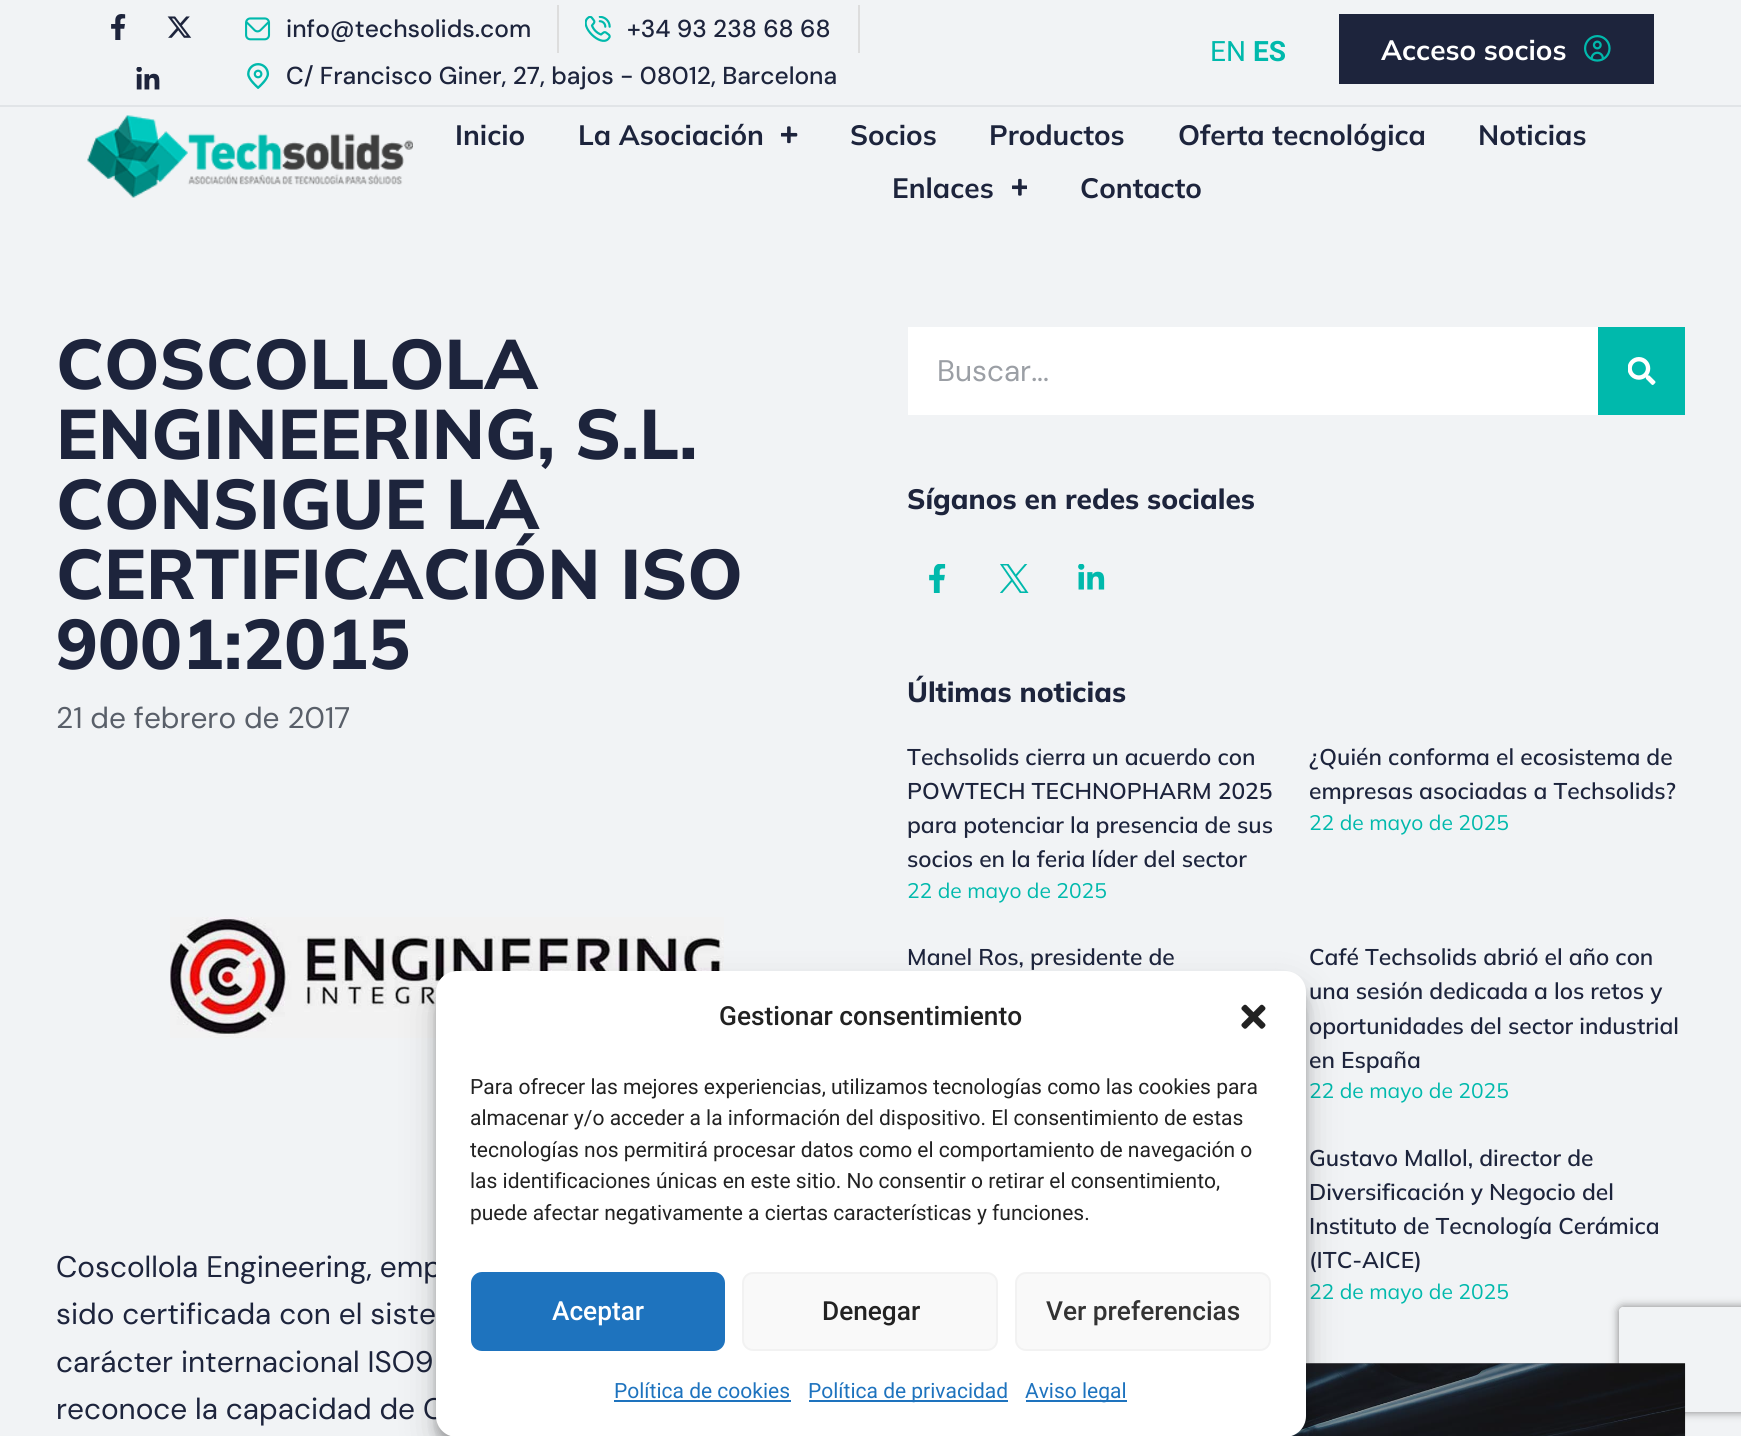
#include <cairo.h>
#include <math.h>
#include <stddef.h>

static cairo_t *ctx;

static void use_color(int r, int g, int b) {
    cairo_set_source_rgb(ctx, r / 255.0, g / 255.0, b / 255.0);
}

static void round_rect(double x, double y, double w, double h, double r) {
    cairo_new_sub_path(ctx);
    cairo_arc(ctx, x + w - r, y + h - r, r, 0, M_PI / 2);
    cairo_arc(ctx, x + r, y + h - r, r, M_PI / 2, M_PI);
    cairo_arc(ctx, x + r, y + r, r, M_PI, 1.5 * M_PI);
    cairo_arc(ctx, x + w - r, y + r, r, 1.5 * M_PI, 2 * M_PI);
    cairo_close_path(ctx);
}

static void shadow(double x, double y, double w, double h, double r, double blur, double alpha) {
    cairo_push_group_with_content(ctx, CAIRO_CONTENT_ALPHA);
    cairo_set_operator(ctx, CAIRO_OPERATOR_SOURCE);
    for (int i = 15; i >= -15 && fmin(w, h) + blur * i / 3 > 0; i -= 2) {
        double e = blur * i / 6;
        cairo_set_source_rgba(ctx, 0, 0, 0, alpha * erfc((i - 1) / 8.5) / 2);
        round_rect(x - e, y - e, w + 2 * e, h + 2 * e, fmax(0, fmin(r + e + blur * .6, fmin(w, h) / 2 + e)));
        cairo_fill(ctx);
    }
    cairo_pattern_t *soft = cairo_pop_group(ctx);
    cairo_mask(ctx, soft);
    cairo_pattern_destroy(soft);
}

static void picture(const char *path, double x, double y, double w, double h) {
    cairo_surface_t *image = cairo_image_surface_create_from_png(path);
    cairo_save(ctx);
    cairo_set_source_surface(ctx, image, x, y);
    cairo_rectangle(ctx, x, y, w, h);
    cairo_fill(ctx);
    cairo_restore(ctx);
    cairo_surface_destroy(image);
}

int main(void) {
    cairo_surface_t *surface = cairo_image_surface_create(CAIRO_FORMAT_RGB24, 1741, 1436);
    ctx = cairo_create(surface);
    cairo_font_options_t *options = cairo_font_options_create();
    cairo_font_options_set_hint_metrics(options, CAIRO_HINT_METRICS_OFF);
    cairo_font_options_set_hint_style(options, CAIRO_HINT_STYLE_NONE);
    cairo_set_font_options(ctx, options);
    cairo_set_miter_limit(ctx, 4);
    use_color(241, 243, 245);
    cairo_paint(ctx);
    use_color(225, 228, 231);
    cairo_rectangle(ctx, 0, 105, 1741, 2);
    cairo_fill(ctx);
    picture("img1.png", 111, 14, 15, 26);
    picture("img2.png", 167, 16, 25, 22);
    picture("img3.png", 136, 67, 24, 23);
    picture("img4.png", 245, 17, 26, 24);
    cairo_select_font_face(ctx, "DM Sans Medium", CAIRO_FONT_SLANT_NORMAL, CAIRO_FONT_WEIGHT_NORMAL);
    cairo_set_font_size(ctx, 24.5);
    use_color(29, 36, 60);
    cairo_move_to(ctx, 286, 37);
    cairo_show_text(ctx, "info@techsolids.com");
    use_color(221, 221, 221);
    cairo_rectangle(ctx, 557, 5, 2, 48);
    cairo_fill(ctx);
    picture("img5.png", 585, 16, 26, 26);
    use_color(29, 36, 60);
    cairo_move_to(ctx, 627, 37);
    cairo_show_text(ctx, "+34 93 238 68 68");
    use_color(221, 221, 221);
    cairo_rectangle(ctx, 858, 5, 2, 48);
    cairo_fill(ctx);
    picture("img6.png", 247, 63, 23, 26);
    use_color(29, 36, 60);
    cairo_move_to(ctx, 286, 84);
    cairo_show_text(ctx, "C/ Francisco Giner, 27, bajos - 08012, Barcelona");
    cairo_select_font_face(ctx, "Roboto", CAIRO_FONT_SLANT_NORMAL, CAIRO_FONT_WEIGHT_NORMAL);
    cairo_set_font_size(ctx, 28);
    use_color(0, 185, 172);
    cairo_move_to(ctx, 1210, 61);
    cairo_show_text(ctx, "EN");
    cairo_select_font_face(ctx, "Roboto", CAIRO_FONT_SLANT_NORMAL, CAIRO_FONT_WEIGHT_BOLD);
    cairo_move_to(ctx, 1253, 61);
    cairo_show_text(ctx, "ES");
    use_color(29, 36, 60);
    cairo_rectangle(ctx, 1339, 14, 315, 70);
    cairo_fill(ctx);
    cairo_select_font_face(ctx, "Mulish", CAIRO_FONT_SLANT_NORMAL, CAIRO_FONT_WEIGHT_BOLD);
    use_color(255, 255, 255);
    cairo_move_to(ctx, 1381, 60);
    cairo_show_text(ctx, "Acceso socios");
    picture("img7.png", 1584, 35, 27, 27);
    picture("img8.png", 87, 115, 326, 83);
    use_color(29, 36, 60);
    cairo_move_to(ctx, 455, 145);
    cairo_show_text(ctx, "Inicio");
    cairo_move_to(ctx, 578, 145);
    cairo_show_text(ctx, "La Asociación");
    picture("img9.png", 781, 126, 17, 18);
    cairo_move_to(ctx, 850, 145);
    cairo_show_text(ctx, "Socios");
    cairo_move_to(ctx, 989, 145);
    cairo_show_text(ctx, "Productos");
    cairo_move_to(ctx, 1178, 145);
    cairo_show_text(ctx, "Oferta tecnológica");
    cairo_move_to(ctx, 1478, 145);
    cairo_show_text(ctx, "Noticias");
    cairo_move_to(ctx, 892, 198);
    cairo_show_text(ctx, "Enlaces");
    picture("img10.png", 1012, 178, 15, 18);
    cairo_move_to(ctx, 1080, 198);
    cairo_show_text(ctx, "Contacto");
    cairo_select_font_face(ctx, "Mulish ExtraBold", CAIRO_FONT_SLANT_NORMAL, CAIRO_FONT_WEIGHT_NORMAL);
    cairo_set_font_size(ctx, 70);
    cairo_move_to(ctx, 56, 389);
    cairo_show_text(ctx, "COSCOLLOLA");
    cairo_move_to(ctx, 56, 459);
    cairo_show_text(ctx, "ENGINEERING, S.L.");
    cairo_move_to(ctx, 56, 529);
    cairo_show_text(ctx, "CONSIGUE LA");
    cairo_move_to(ctx, 56, 599);
    cairo_show_text(ctx, "CERTIFICACIÓN ISO");
    cairo_move_to(ctx, 56, 669);
    cairo_show_text(ctx, "9001:2015");
    cairo_select_font_face(ctx, "DM Sans", CAIRO_FONT_SLANT_NORMAL, CAIRO_FONT_WEIGHT_NORMAL);
    cairo_set_font_size(ctx, 29.75);
    use_color(89, 95, 105);
    cairo_move_to(ctx, 56, 728);
    cairo_show_text(ctx, "21 de febrero de 2017");
    picture("img11.png", 170, 917, 554, 121);
    use_color(29, 36, 60);
    cairo_move_to(ctx, 56, 1277);
    cairo_show_text(ctx, "Coscollola Engineering, emp");
    cairo_move_to(ctx, 56, 1324);
    cairo_show_text(ctx, "sido certificada con el siste");
    cairo_move_to(ctx, 56, 1372);
    cairo_show_text(ctx, "carácter internacional ISO9");
    cairo_move_to(ctx, 56, 1419);
    cairo_show_text(ctx, "reconoce la capacidad de C");
    use_color(255, 255, 255);
    cairo_rectangle(ctx, 908, 327, 690, 88);
    cairo_fill(ctx);
    use_color(155, 159, 165);
    cairo_move_to(ctx, 937, 381);
    cairo_show_text(ctx, "Buscar...");
    use_color(0, 185, 172);
    cairo_rectangle(ctx, 1598, 327, 87, 88);
    cairo_fill(ctx);
    picture("img12.png", 1628, 357, 28, 28);
    cairo_select_font_face(ctx, "Mulish ExtraBold", CAIRO_FONT_SLANT_NORMAL, CAIRO_FONT_WEIGHT_NORMAL);
    cairo_set_font_size(ctx, 28);
    use_color(29, 36, 60);
    cairo_move_to(ctx, 907, 509);
    cairo_show_text(ctx, "Síganos en redes sociales");
    picture("img13.png", 929, 564, 17, 29);
    picture("img14.png", 1000, 564, 29, 29);
    picture("img15.png", 1078, 564, 27, 26);
    cairo_move_to(ctx, 907, 702);
    cairo_show_text(ctx, "Últimas noticias");
    cairo_select_font_face(ctx, "Mulish SemiBold", CAIRO_FONT_SLANT_NORMAL, CAIRO_FONT_WEIGHT_NORMAL);
    cairo_set_font_size(ctx, 22.75);
    cairo_move_to(ctx, 907, 765);
    cairo_show_text(ctx, "Techsolids cierra un acuerdo con");
    cairo_move_to(ctx, 907, 799);
    cairo_show_text(ctx, "POWTECH TECHNOPHARM 2025");
    cairo_move_to(ctx, 907, 833);
    cairo_show_text(ctx, "para potenciar la presencia de sus");
    cairo_move_to(ctx, 907, 867);
    cairo_show_text(ctx, "socios en la feria líder del sector");
    cairo_select_font_face(ctx, "Mulish", CAIRO_FONT_SLANT_NORMAL, CAIRO_FONT_WEIGHT_NORMAL);
    cairo_set_font_size(ctx, 21);
    use_color(0, 185, 172);
    cairo_move_to(ctx, 907, 898);
    cairo_show_text(ctx, "22 de mayo de 2025");
    cairo_select_font_face(ctx, "Mulish SemiBold", CAIRO_FONT_SLANT_NORMAL, CAIRO_FONT_WEIGHT_NORMAL);
    cairo_set_font_size(ctx, 22.75);
    use_color(29, 36, 60);
    cairo_move_to(ctx, 1309, 765);
    cairo_show_text(ctx, "¿Quién conforma el ecosistema de");
    cairo_move_to(ctx, 1309, 799);
    cairo_show_text(ctx, "empresas asociadas a Techsolids?");
    cairo_select_font_face(ctx, "Mulish", CAIRO_FONT_SLANT_NORMAL, CAIRO_FONT_WEIGHT_NORMAL);
    cairo_set_font_size(ctx, 21);
    use_color(0, 185, 172);
    cairo_move_to(ctx, 1309, 830);
    cairo_show_text(ctx, "22 de mayo de 2025");
    cairo_select_font_face(ctx, "Mulish SemiBold", CAIRO_FONT_SLANT_NORMAL, CAIRO_FONT_WEIGHT_NORMAL);
    cairo_set_font_size(ctx, 22.75);
    use_color(29, 36, 60);
    cairo_move_to(ctx, 907, 965);
    cairo_show_text(ctx, "Manel Ros, presidente de");
    cairo_move_to(ctx, 1309, 965);
    cairo_show_text(ctx, "Café Techsolids abrió el año con");
    cairo_move_to(ctx, 1309, 999);
    cairo_show_text(ctx, "una sesión dedicada a los retos y");
    cairo_move_to(ctx, 1309, 1034);
    cairo_show_text(ctx, "oportunidades del sector industrial");
    cairo_move_to(ctx, 1309, 1068);
    cairo_show_text(ctx, "en España");
    cairo_select_font_face(ctx, "Mulish", CAIRO_FONT_SLANT_NORMAL, CAIRO_FONT_WEIGHT_NORMAL);
    cairo_set_font_size(ctx, 21);
    use_color(0, 185, 172);
    cairo_move_to(ctx, 1309, 1098);
    cairo_show_text(ctx, "22 de mayo de 2025");
    cairo_select_font_face(ctx, "Mulish SemiBold", CAIRO_FONT_SLANT_NORMAL, CAIRO_FONT_WEIGHT_NORMAL);
    cairo_set_font_size(ctx, 22.75);
    use_color(29, 36, 60);
    cairo_move_to(ctx, 1309, 1166);
    cairo_show_text(ctx, "Gustavo Mallol, director de");
    cairo_move_to(ctx, 1309, 1200);
    cairo_show_text(ctx, "Diversificación y Negocio del");
    cairo_move_to(ctx, 1309, 1234);
    cairo_show_text(ctx, "Instituto de Tecnología Cerámica");
    cairo_move_to(ctx, 1309, 1268);
    cairo_show_text(ctx, "(ITC-AICE)");
    cairo_select_font_face(ctx, "Mulish", CAIRO_FONT_SLANT_NORMAL, CAIRO_FONT_WEIGHT_NORMAL);
    cairo_set_font_size(ctx, 21);
    use_color(0, 185, 172);
    cairo_move_to(ctx, 1309, 1299);
    cairo_show_text(ctx, "22 de mayo de 2025");
    cairo_save(ctx);
    cairo_set_fill_rule(ctx, CAIRO_FILL_RULE_EVEN_ODD);
    cairo_new_path(ctx);
    cairo_move_to(ctx, 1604, 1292);
    cairo_line_to(ctx, 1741, 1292);
    cairo_line_to(ctx, 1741, 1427);
    cairo_line_to(ctx, 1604, 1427);
    cairo_close_path(ctx);
    cairo_move_to(ctx, 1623, 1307);
    cairo_line_to(ctx, 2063, 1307);
    cairo_curve_to(ctx, 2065, 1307, 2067, 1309, 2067, 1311);
    cairo_line_to(ctx, 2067, 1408);
    cairo_curve_to(ctx, 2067, 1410, 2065, 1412, 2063, 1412);
    cairo_line_to(ctx, 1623, 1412);
    cairo_curve_to(ctx, 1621, 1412, 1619, 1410, 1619, 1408);
    cairo_line_to(ctx, 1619, 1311);
    cairo_curve_to(ctx, 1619, 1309, 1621, 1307, 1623, 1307);
    cairo_close_path(ctx);
    cairo_clip(ctx);
    use_color(128, 128, 128);
    shadow(1619, 1307, 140, 105, 4, 4.5, 1);
    cairo_restore(ctx);
    picture("img16.png", 1291, 1363, 395, 73);
    cairo_set_source_rgba(ctx, 0.141, 0.141, 0.141, 0.5);
    cairo_rectangle(ctx, 1291, 1363, 394, 73);
    cairo_fill(ctx);
    use_color(0, 0, 0);
    shadow(436, 982, 870, 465, 21, 5, 0.23);
    shadow(436, 989, 870, 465, 21, 17.5, 0.19);
    use_color(255, 255, 255);
    round_rect(436, 971, 870, 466, 21);
    cairo_fill(ctx);
    cairo_select_font_face(ctx, "Roboto Medium", CAIRO_FONT_SLANT_NORMAL, CAIRO_FONT_WEIGHT_NORMAL);
    cairo_set_font_size(ctx, 26.25);
    use_color(34, 34, 34);
    cairo_move_to(ctx, 719, 1025);
    cairo_show_text(ctx, "Gestionar consentimiento");
    picture("img17.png", 1241, 1004, 25, 25);
    cairo_select_font_face(ctx, "Roboto", CAIRO_FONT_SLANT_NORMAL, CAIRO_FONT_WEIGHT_NORMAL);
    cairo_set_font_size(ctx, 21);
    cairo_move_to(ctx, 470, 1094);
    cairo_show_text(ctx, "Para ofrecer las mejores experiencias, utilizamos tecnologías como las cookies para");
    cairo_move_to(ctx, 470, 1125);
    cairo_show_text(ctx, "almacenar y/o acceder a la información del dispositivo. El consentimiento de estas");
    cairo_move_to(ctx, 470, 1157);
    cairo_show_text(ctx, "tecnologías nos permitirá procesar datos como el comportamiento de navegación o");
    cairo_move_to(ctx, 470, 1188);
    cairo_show_text(ctx, "las identificaciones únicas en este sitio. No consentir o retirar el consentimiento,");
    cairo_move_to(ctx, 470, 1220);
    cairo_show_text(ctx, "puede afectar negativamente a ciertas características y funciones.");
    use_color(30, 115, 190);
    round_rect(472, 1273, 252, 77, 10);
    cairo_fill_preserve(ctx);
    cairo_stroke(ctx);
    cairo_select_font_face(ctx, "Roboto Medium", CAIRO_FONT_SLANT_NORMAL, CAIRO_FONT_WEIGHT_NORMAL);
    cairo_set_font_size(ctx, 26.25);
    use_color(255, 255, 255);
    cairo_move_to(ctx, 552, 1320);
    cairo_show_text(ctx, "Aceptar");
    use_color(249, 249, 249);
    round_rect(743, 1273, 254, 77, 10);
    cairo_fill_preserve(ctx);
    use_color(242, 242, 242);
    cairo_stroke(ctx);
    use_color(34, 34, 34);
    cairo_move_to(ctx, 822, 1320);
    cairo_show_text(ctx, "Denegar");
    use_color(249, 249, 249);
    round_rect(1016, 1273, 254, 77, 10);
    cairo_fill_preserve(ctx);
    use_color(242, 242, 242);
    cairo_stroke(ctx);
    use_color(51, 51, 51);
    cairo_move_to(ctx, 1046, 1320);
    cairo_show_text(ctx, "Ver preferencias");
    cairo_select_font_face(ctx, "Roboto", CAIRO_FONT_SLANT_NORMAL, CAIRO_FONT_WEIGHT_NORMAL);
    cairo_set_font_size(ctx, 21);
    use_color(30, 115, 190);
    cairo_move_to(ctx, 614, 1398);
    cairo_show_text(ctx, "Política de cookies");
    cairo_rectangle(ctx, 614, 1400, 177, 2);
    cairo_fill(ctx);
    cairo_rectangle(ctx, 809, 1400, 199, 2);
    cairo_fill(ctx);
    cairo_move_to(ctx, 808, 1398);
    cairo_show_text(ctx, "Política de privacidad");
    cairo_rectangle(ctx, 1026, 1400, 101, 2);
    cairo_fill(ctx);
    cairo_move_to(ctx, 1025, 1398);
    cairo_show_text(ctx, "Aviso legal");
    cairo_surface_write_to_png(surface, "result.png");
    cairo_font_options_destroy(options);
    cairo_destroy(ctx);
    cairo_surface_destroy(surface);
    return 0;
}
